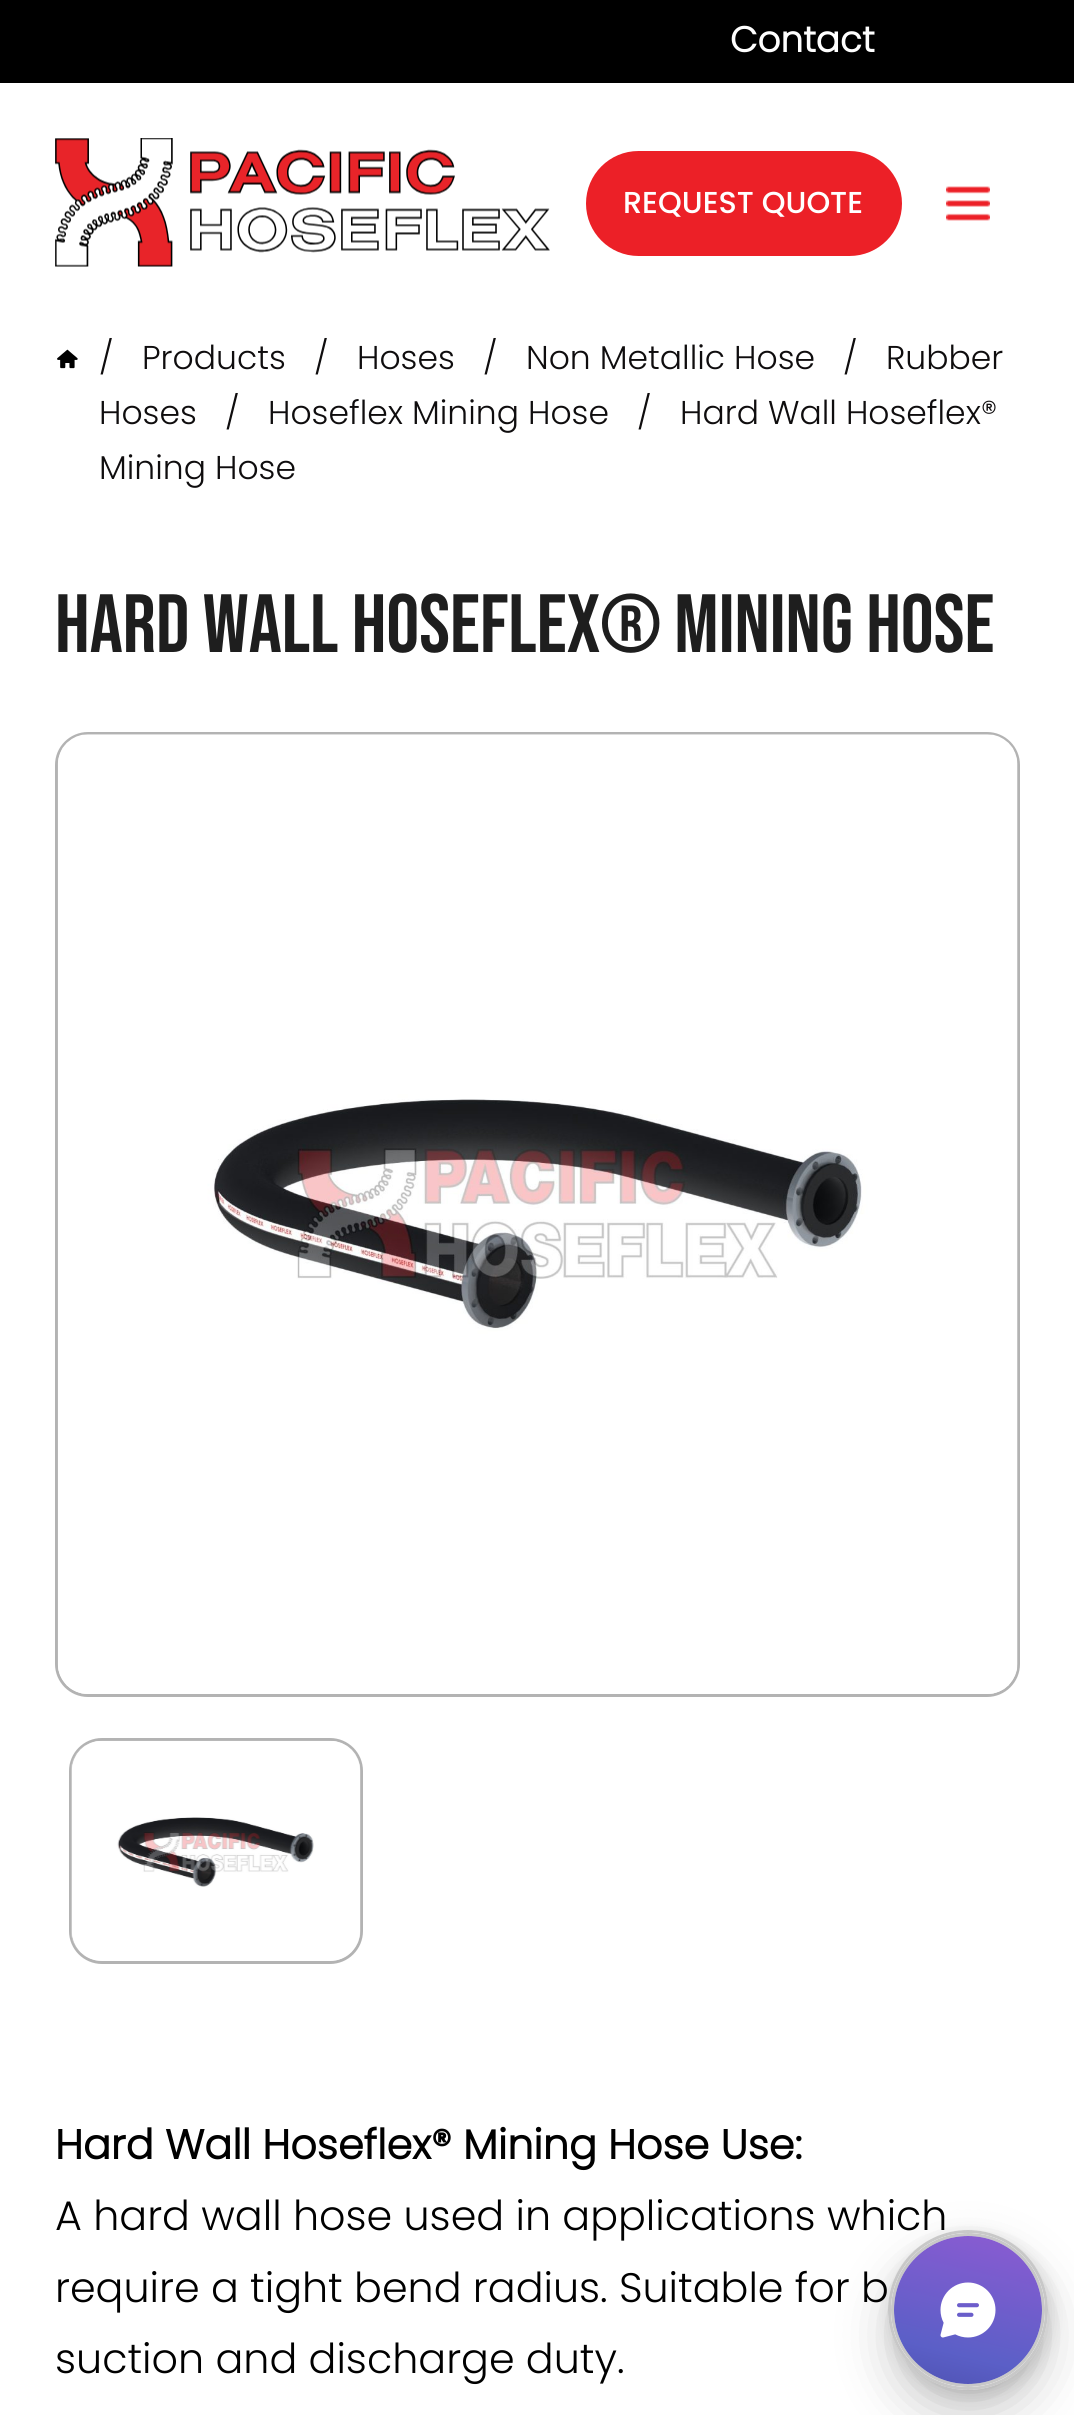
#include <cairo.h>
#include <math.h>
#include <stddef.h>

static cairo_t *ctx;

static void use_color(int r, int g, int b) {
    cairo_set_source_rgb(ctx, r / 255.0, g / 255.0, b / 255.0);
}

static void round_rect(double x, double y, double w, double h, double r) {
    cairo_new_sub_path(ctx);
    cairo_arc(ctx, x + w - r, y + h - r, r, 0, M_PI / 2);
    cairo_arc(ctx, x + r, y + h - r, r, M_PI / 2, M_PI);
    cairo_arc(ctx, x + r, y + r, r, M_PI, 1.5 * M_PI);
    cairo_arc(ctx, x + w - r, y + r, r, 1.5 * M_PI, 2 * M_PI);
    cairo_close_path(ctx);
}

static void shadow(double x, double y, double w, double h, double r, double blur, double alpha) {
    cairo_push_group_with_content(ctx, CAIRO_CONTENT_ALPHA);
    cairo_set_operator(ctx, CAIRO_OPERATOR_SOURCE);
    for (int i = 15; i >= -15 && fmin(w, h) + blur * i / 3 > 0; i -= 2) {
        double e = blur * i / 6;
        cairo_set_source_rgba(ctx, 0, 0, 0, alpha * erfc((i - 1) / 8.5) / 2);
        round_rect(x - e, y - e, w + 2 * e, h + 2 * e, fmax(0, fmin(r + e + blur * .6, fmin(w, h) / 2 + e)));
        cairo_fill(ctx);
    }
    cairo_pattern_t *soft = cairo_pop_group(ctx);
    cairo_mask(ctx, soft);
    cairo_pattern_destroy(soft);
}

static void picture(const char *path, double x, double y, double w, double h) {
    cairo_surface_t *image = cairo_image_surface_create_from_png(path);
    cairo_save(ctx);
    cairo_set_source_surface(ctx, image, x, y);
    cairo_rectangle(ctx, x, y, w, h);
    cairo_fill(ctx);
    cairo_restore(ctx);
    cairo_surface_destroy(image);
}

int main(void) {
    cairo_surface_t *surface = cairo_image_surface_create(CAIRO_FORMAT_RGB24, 1074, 2415);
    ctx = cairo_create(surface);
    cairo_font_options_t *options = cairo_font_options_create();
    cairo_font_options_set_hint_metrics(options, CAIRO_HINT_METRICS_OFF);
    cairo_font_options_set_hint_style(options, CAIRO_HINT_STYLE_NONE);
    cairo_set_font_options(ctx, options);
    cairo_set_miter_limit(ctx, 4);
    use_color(255, 255, 255);
    cairo_paint(ctx);
    use_color(0, 0, 0);
    cairo_rectangle(ctx, 0, 0, 1074, 83);
    cairo_fill(ctx);
    cairo_select_font_face(ctx, "Poppins", CAIRO_FONT_SLANT_NORMAL, CAIRO_FONT_WEIGHT_BOLD);
    cairo_set_font_size(ctx, 35.75);
    use_color(255, 255, 255);
    cairo_move_to(ctx, 730, 52);
    cairo_show_text(ctx, "Contact");
    picture("img1.png", 55, 138, 495, 129);
    use_color(236, 32, 39);
    round_rect(589, 154, 310, 99, 49.5);
    cairo_fill_preserve(ctx);
    cairo_set_line_width(ctx, 6);
    cairo_stroke(ctx);
    cairo_select_font_face(ctx, "Poppins Medium", CAIRO_FONT_SLANT_NORMAL, CAIRO_FONT_WEIGHT_NORMAL);
    cairo_set_font_size(ctx, 30.25);
    use_color(255, 255, 255);
    cairo_move_to(ctx, 623, 213);
    cairo_show_text(ctx, "REQUEST QUOTE");
    picture("img2.png", 946, 186, 44, 35);
    picture("img3.png", 57, 349, 21, 20);
    cairo_select_font_face(ctx, "Poppins Light", CAIRO_FONT_SLANT_NORMAL, CAIRO_FONT_WEIGHT_NORMAL);
    cairo_set_font_size(ctx, 33);
    use_color(15, 13, 14);
    cairo_move_to(ctx, 99, 369);
    cairo_show_text(ctx, "/");
    cairo_move_to(ctx, 142, 369);
    cairo_show_text(ctx, "Products");
    cairo_move_to(ctx, 314, 369);
    cairo_show_text(ctx, "/");
    cairo_move_to(ctx, 357, 369);
    cairo_show_text(ctx, "Hoses");
    cairo_move_to(ctx, 483, 369);
    cairo_show_text(ctx, "/");
    cairo_move_to(ctx, 526, 369);
    cairo_show_text(ctx, "Non Metallic Hose");
    cairo_move_to(ctx, 843, 369);
    cairo_show_text(ctx, "/");
    cairo_move_to(ctx, 886, 369);
    cairo_show_text(ctx, "Rubber");
    cairo_move_to(ctx, 99, 424);
    cairo_show_text(ctx, "Hoses");
    cairo_move_to(ctx, 225, 424);
    cairo_show_text(ctx, "/");
    cairo_move_to(ctx, 268, 424);
    cairo_show_text(ctx, "Hoseflex Mining Hose");
    cairo_move_to(ctx, 637, 424);
    cairo_show_text(ctx, "/");
    cairo_move_to(ctx, 680, 424);
    cairo_show_text(ctx, "Hard Wall Hoseflex®");
    cairo_move_to(ctx, 99, 479);
    cairo_show_text(ctx, "Mining Hose");
    cairo_select_font_face(ctx, "Bebas Neue", CAIRO_FONT_SLANT_NORMAL, CAIRO_FONT_WEIGHT_NORMAL);
    cairo_set_font_size(ctx, 82.5);
    use_color(30, 30, 30);
    cairo_move_to(ctx, 55, 652);
    cairo_show_text(ctx, "Hard Wall Hoseflex® Mining Hose");
    round_rect(56.5, 733.5, 962, 962, 31.5);
    use_color(179, 179, 179);
    cairo_set_line_width(ctx, 3);
    cairo_stroke(ctx);
    picture("img4.png", 57, 734, 961, 960);
    round_rect(70.5, 1739.5, 291, 223, 31.5);
    cairo_stroke(ctx);
    picture("img5.png", 71, 1740, 290, 221);
    cairo_select_font_face(ctx, "Poppins", CAIRO_FONT_SLANT_NORMAL, CAIRO_FONT_WEIGHT_BOLD);
    cairo_set_font_size(ctx, 41.25);
    use_color(0, 0, 0);
    cairo_move_to(ctx, 55, 2159);
    cairo_show_text(ctx, "Hard Wall Hoseflex® Mining Hose Use:");
    cairo_select_font_face(ctx, "Poppins Light", CAIRO_FONT_SLANT_NORMAL, CAIRO_FONT_WEIGHT_NORMAL);
    cairo_move_to(ctx, 55, 2230);
    cairo_show_text(ctx, "A hard wall hose used in applications which");
    cairo_move_to(ctx, 55, 2302);
    cairo_show_text(ctx, "require a tight bend radius. Suitable for b");
    cairo_move_to(ctx, 55, 2373);
    cairo_show_text(ctx, "suction and discharge duty.");
    cairo_save(ctx);
    cairo_set_fill_rule(ctx, CAIRO_FILL_RULE_EVEN_ODD);
    cairo_new_path(ctx);
    cairo_move_to(ctx, 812, 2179);
    cairo_line_to(ctx, 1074, 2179);
    cairo_line_to(ctx, 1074, 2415);
    cairo_line_to(ctx, 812, 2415);
    cairo_close_path(ctx);
    cairo_move_to(ctx, 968, 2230);
    cairo_curve_to(ctx, 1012, 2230, 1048, 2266, 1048, 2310);
    cairo_curve_to(ctx, 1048, 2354, 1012, 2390, 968, 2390);
    cairo_curve_to(ctx, 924, 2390, 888, 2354, 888, 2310);
    cairo_curve_to(ctx, 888, 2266, 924, 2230, 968, 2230);
    cairo_close_path(ctx);
    cairo_clip(ctx);
    use_color(0, 0, 0);
    shadow(888, 2255, 160, 160, 80, 25, 0.2);
    cairo_restore(ctx);
    cairo_save(ctx);
    cairo_set_fill_rule(ctx, CAIRO_FILL_RULE_EVEN_ODD);
    cairo_new_path(ctx);
    cairo_move_to(ctx, 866, 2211);
    cairo_line_to(ctx, 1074, 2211);
    cairo_line_to(ctx, 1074, 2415);
    cairo_line_to(ctx, 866, 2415);
    cairo_close_path(ctx);
    cairo_move_to(ctx, 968, 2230);
    cairo_curve_to(ctx, 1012, 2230, 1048, 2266, 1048, 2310);
    cairo_curve_to(ctx, 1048, 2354, 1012, 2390, 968, 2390);
    cairo_curve_to(ctx, 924, 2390, 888, 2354, 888, 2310);
    cairo_curve_to(ctx, 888, 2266, 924, 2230, 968, 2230);
    cairo_close_path(ctx);
    cairo_clip(ctx);
    use_color(0, 0, 0);
    shadow(891, 2236, 160, 159, 79.5, 8, 0.14);
    cairo_restore(ctx);
    cairo_arc(ctx, 968, 2310, 78.5, 0, 2 * M_PI);
    cairo_set_source_rgba(ctx, 0.459, 0.459, 0.459, 0.4);
    cairo_stroke(ctx);
    picture("img6.png", 891, 2233, 154, 154);
    cairo_surface_write_to_png(surface, "result.png");
    cairo_font_options_destroy(options);
    cairo_destroy(ctx);
    cairo_surface_destroy(surface);
    return 0;
}
